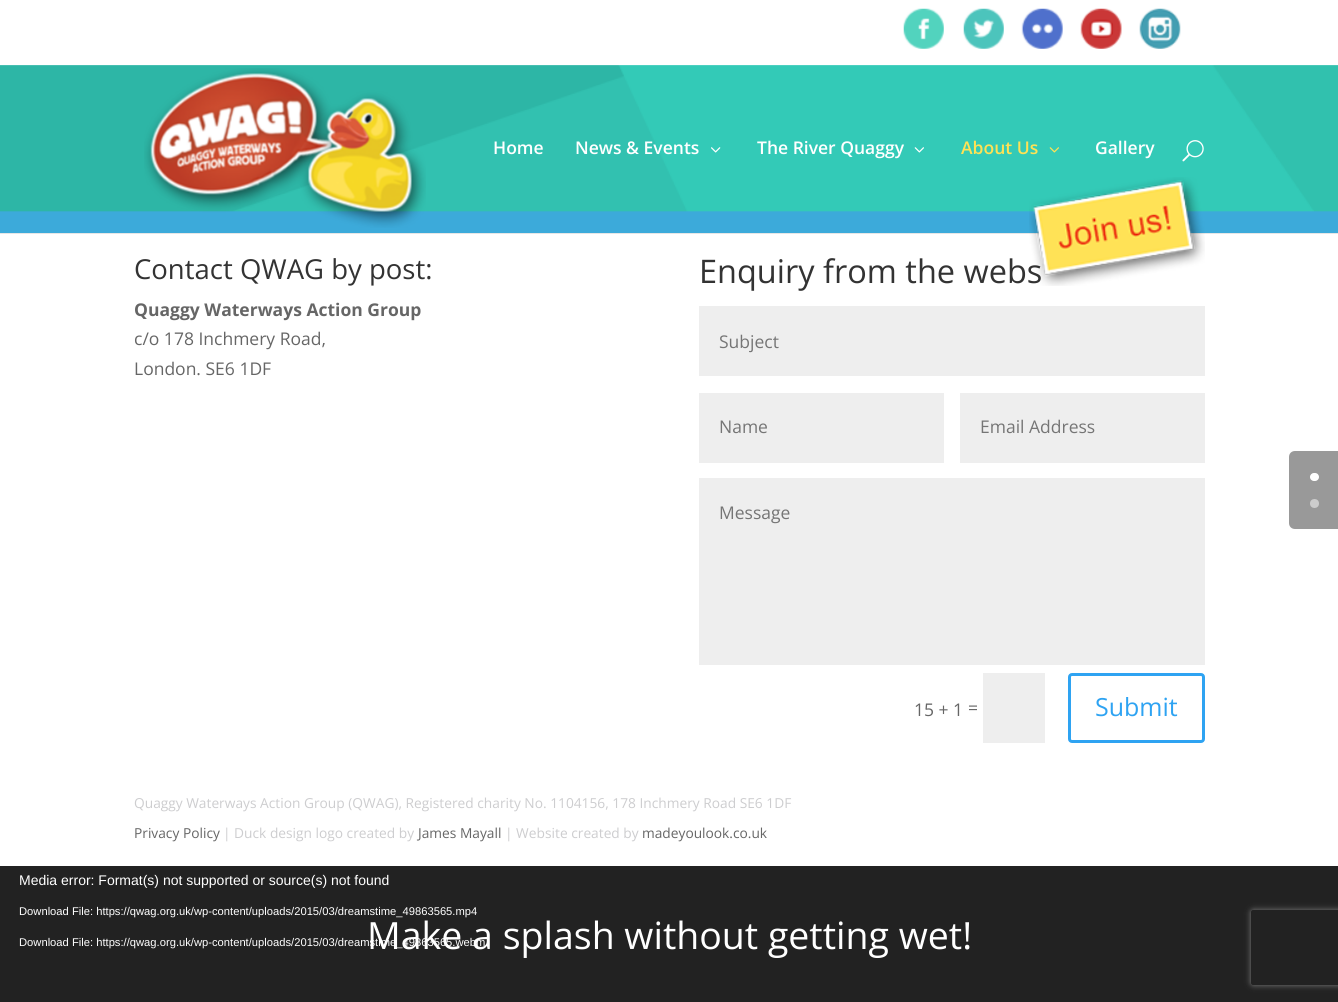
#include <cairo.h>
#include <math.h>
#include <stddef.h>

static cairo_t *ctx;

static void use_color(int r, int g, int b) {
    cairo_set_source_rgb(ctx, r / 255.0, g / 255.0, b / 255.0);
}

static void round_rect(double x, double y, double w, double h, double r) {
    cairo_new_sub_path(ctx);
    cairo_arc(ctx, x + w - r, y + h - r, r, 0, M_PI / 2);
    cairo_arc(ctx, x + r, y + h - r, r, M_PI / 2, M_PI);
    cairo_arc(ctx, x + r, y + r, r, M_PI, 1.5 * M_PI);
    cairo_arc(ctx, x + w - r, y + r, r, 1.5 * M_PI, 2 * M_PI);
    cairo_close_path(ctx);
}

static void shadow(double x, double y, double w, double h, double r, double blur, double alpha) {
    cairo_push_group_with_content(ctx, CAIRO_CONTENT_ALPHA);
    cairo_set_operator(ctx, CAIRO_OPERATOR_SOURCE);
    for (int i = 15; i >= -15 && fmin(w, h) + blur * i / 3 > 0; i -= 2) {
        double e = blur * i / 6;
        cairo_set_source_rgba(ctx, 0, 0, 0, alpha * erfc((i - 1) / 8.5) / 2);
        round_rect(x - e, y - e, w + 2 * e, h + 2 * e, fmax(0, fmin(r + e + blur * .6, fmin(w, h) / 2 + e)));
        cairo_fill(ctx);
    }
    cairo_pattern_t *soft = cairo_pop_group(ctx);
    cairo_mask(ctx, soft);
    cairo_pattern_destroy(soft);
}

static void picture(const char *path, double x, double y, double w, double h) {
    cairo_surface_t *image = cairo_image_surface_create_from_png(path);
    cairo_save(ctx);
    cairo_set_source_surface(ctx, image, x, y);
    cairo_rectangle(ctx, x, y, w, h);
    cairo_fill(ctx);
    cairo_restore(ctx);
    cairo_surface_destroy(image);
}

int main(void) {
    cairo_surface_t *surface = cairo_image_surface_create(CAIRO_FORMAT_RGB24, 1338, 1002);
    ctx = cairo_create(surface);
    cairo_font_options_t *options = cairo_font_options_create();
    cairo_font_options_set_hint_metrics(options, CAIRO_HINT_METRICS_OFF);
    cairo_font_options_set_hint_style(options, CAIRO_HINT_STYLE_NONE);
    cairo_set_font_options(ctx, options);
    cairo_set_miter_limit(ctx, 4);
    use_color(255, 255, 255);
    cairo_paint(ctx);
    picture("img1.png", 903, 8, 41, 41);
    picture("img2.png", 963, 8, 41, 41);
    picture("img3.png", 1021, 8, 42, 41);
    picture("img4.png", 1080, 8, 42, 41);
    picture("img5.png", 1139, 8, 42, 41);
    use_color(230, 230, 230);
    cairo_new_path(ctx);
    cairo_move_to(ctx, 0, 232);
    cairo_line_to(ctx, 0, 234);
    cairo_line_to(ctx, 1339, 234);
    cairo_line_to(ctx, 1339, 66);
    cairo_line_to(ctx, 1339, 232);
    cairo_close_path(ctx);
    cairo_fill(ctx);
    picture("img6.png", 0, 65, 1338, 168);
    picture("img7.png", 144, 68, 282, 160);
    cairo_select_font_face(ctx, "Open Sans SemiBold", CAIRO_FONT_SLANT_NORMAL, CAIRO_FONT_WEIGHT_NORMAL);
    cairo_set_font_size(ctx, 17.5);
    use_color(255, 255, 255);
    cairo_move_to(ctx, 493, 154);
    cairo_show_text(ctx, "Home");
    cairo_move_to(ctx, 575, 154);
    cairo_show_text(ctx, "News & Events");
    picture("img8.png", 711, 147, 10, 6);
    cairo_move_to(ctx, 757, 154);
    cairo_show_text(ctx, "The River Quaggy");
    picture("img9.png", 914, 147, 10, 6);
    use_color(255, 226, 84);
    cairo_move_to(ctx, 961, 154);
    cairo_show_text(ctx, "About Us");
    picture("img10.png", 1049, 147, 10, 6);
    use_color(255, 255, 255);
    cairo_move_to(ctx, 1095, 154);
    cairo_show_text(ctx, "Gallery");
    picture("img11.png", 1182, 140, 22, 22);
    cairo_select_font_face(ctx, "Open Sans", CAIRO_FONT_SLANT_NORMAL, CAIRO_FONT_WEIGHT_NORMAL);
    cairo_set_font_size(ctx, 32.5);
    use_color(51, 51, 51);
    cairo_move_to(ctx, 699, 283);
    cairo_show_text(ctx, "Enquiry from the webs");
    picture("img12.png", 1029, 177, 176, 109);
    cairo_set_font_size(ctx, 27.5);
    cairo_move_to(ctx, 134, 279);
    cairo_show_text(ctx, "Contact QWAG by post:");
    cairo_select_font_face(ctx, "Open Sans", CAIRO_FONT_SLANT_NORMAL, CAIRO_FONT_WEIGHT_BOLD);
    cairo_set_font_size(ctx, 17.5);
    use_color(102, 102, 102);
    cairo_move_to(ctx, 134, 316);
    cairo_show_text(ctx, "Quaggy Waterways Action Group");
    cairo_select_font_face(ctx, "Open Sans", CAIRO_FONT_SLANT_NORMAL, CAIRO_FONT_WEIGHT_NORMAL);
    cairo_move_to(ctx, 134, 345);
    cairo_show_text(ctx, "c/o 178 Inchmery Road,");
    cairo_move_to(ctx, 134, 375);
    cairo_show_text(ctx, "London. SE6 1DF");
    use_color(238, 238, 238);
    cairo_rectangle(ctx, 699, 306, 506, 70);
    cairo_fill(ctx);
    use_color(117, 117, 117);
    cairo_move_to(ctx, 719, 348);
    cairo_show_text(ctx, "Subject");
    use_color(238, 238, 238);
    cairo_rectangle(ctx, 699, 393, 245, 70);
    cairo_fill(ctx);
    use_color(117, 117, 117);
    cairo_move_to(ctx, 719, 433);
    cairo_show_text(ctx, "Name");
    use_color(238, 238, 238);
    cairo_rectangle(ctx, 960, 393, 245, 70);
    cairo_fill(ctx);
    use_color(117, 117, 117);
    cairo_move_to(ctx, 980, 433);
    cairo_show_text(ctx, "Email Address");
    use_color(238, 238, 238);
    cairo_rectangle(ctx, 699, 478, 506, 187);
    cairo_fill(ctx);
    use_color(117, 117, 117);
    cairo_move_to(ctx, 719, 519);
    cairo_show_text(ctx, "Message");
    use_color(102, 102, 102);
    cairo_move_to(ctx, 914, 716);
    cairo_show_text(ctx, "15 + 1");
    cairo_move_to(ctx, 968, 714);
    cairo_show_text(ctx, "=");
    use_color(238, 238, 238);
    cairo_rectangle(ctx, 983, 673, 62, 70);
    cairo_fill(ctx);
    round_rect(1069.5, 674.5, 134, 67, 2.5);
    use_color(46, 163, 242);
    cairo_set_line_width(ctx, 3);
    cairo_stroke(ctx);
    cairo_set_font_size(ctx, 25);
    cairo_move_to(ctx, 1095, 716);
    cairo_show_text(ctx, "Submit");
    use_color(153, 153, 153);
    cairo_new_path(ctx);
    cairo_move_to(ctx, 1295, 451);
    cairo_line_to(ctx, 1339, 451);
    cairo_line_to(ctx, 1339, 529);
    cairo_line_to(ctx, 1295, 529);
    cairo_curve_to(ctx, 1291.5, 529, 1289, 526.5, 1289, 523);
    cairo_line_to(ctx, 1289, 457);
    cairo_curve_to(ctx, 1289, 453.5, 1291.5, 451, 1295, 451);
    cairo_close_path(ctx);
    cairo_fill(ctx);
    use_color(255, 255, 255);
    round_rect(1310, 473, 9, 8, 4);
    cairo_fill(ctx);
    use_color(204, 204, 204);
    cairo_arc(ctx, 1314.5, 503.5, 4.5, 0, 2 * M_PI);
    cairo_fill(ctx);
    cairo_set_font_size(ctx, 13.75);
    use_color(205, 205, 207);
    cairo_move_to(ctx, 134, 808);
    cairo_show_text(ctx, "Quaggy Waterways Action Group (QWAG), Registered charity No. 1104156, 178 Inchmery Road SE6 1DF");
    use_color(102, 102, 102);
    cairo_move_to(ctx, 134, 838);
    cairo_show_text(ctx, "Privacy Policy");
    use_color(205, 205, 207);
    cairo_move_to(ctx, 223, 838);
    cairo_show_text(ctx, "| Duck design logo created by");
    use_color(102, 102, 102);
    cairo_move_to(ctx, 418, 838);
    cairo_show_text(ctx, "James Mayall");
    use_color(205, 205, 207);
    cairo_move_to(ctx, 505, 838);
    cairo_show_text(ctx, "| Website created by");
    use_color(102, 102, 102);
    cairo_move_to(ctx, 642, 838);
    cairo_show_text(ctx, "madeyoulook.co.uk");
    use_color(34, 34, 34);
    cairo_rectangle(ctx, 0, 866, 1338, 136);
    cairo_fill(ctx);
    cairo_select_font_face(ctx, "Liberation Sans", CAIRO_FONT_SLANT_NORMAL, CAIRO_FONT_WEIGHT_NORMAL);
    cairo_set_font_size(ctx, 14);
    use_color(255, 255, 255);
    cairo_move_to(ctx, 19, 885);
    cairo_show_text(ctx, "Media error: Format(s) not supported or source(s) not found");
    cairo_set_font_size(ctx, 11.2);
    cairo_move_to(ctx, 19, 915);
    cairo_show_text(ctx, "Download File: https://qwag.org.uk/wp-content/uploads/2015/03/dreamstime_49863565.mp4");
    cairo_move_to(ctx, 19, 946);
    cairo_show_text(ctx, "Download File: https://qwag.org.uk/wp-content/uploads/2015/03/dreamstime_49863565.webm");
    cairo_select_font_face(ctx, "Open Sans", CAIRO_FONT_SLANT_NORMAL, CAIRO_FONT_WEIGHT_NORMAL);
    cairo_set_font_size(ctx, 37.5);
    cairo_move_to(ctx, 367, 949);
    cairo_show_text(ctx, "Make a splash without getting wet!");
    cairo_save(ctx);
    cairo_set_fill_rule(ctx, CAIRO_FILL_RULE_EVEN_ODD);
    cairo_new_path(ctx);
    cairo_move_to(ctx, 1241, 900);
    cairo_line_to(ctx, 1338, 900);
    cairo_line_to(ctx, 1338, 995);
    cairo_line_to(ctx, 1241, 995);
    cairo_close_path(ctx);
    cairo_move_to(ctx, 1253.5, 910);
    cairo_line_to(ctx, 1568.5, 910);
    cairo_curve_to(ctx, 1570, 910, 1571, 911, 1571, 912.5);
    cairo_line_to(ctx, 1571, 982.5);
    cairo_curve_to(ctx, 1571, 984, 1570, 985, 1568.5, 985);
    cairo_line_to(ctx, 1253.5, 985);
    cairo_curve_to(ctx, 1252, 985, 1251, 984, 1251, 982.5);
    cairo_line_to(ctx, 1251, 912.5);
    cairo_curve_to(ctx, 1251, 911, 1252, 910, 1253.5, 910);
    cairo_close_path(ctx);
    cairo_clip(ctx);
    use_color(128, 128, 128);
    shadow(1251, 910, 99, 75, 2.5, 3, 1);
    cairo_restore(ctx);
    cairo_surface_write_to_png(surface, "result.png");
    cairo_font_options_destroy(options);
    cairo_destroy(ctx);
    cairo_surface_destroy(surface);
    return 0;
}
